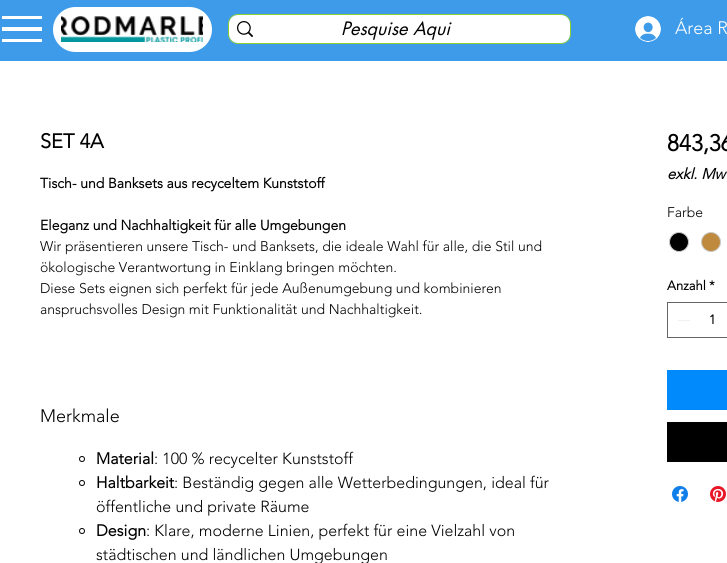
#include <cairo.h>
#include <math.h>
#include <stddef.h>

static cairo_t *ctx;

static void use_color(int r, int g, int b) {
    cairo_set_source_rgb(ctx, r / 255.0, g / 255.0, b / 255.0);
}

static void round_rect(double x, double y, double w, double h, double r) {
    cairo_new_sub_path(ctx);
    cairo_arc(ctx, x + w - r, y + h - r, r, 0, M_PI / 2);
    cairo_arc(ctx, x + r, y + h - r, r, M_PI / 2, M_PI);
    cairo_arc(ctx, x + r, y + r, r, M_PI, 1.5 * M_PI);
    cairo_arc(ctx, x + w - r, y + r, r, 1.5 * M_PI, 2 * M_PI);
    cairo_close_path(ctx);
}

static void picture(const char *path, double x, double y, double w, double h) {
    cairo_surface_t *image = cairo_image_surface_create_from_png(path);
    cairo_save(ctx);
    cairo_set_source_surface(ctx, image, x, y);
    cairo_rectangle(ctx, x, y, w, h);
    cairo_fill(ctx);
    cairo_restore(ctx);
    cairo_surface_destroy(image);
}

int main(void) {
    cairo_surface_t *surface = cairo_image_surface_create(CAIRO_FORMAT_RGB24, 727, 563);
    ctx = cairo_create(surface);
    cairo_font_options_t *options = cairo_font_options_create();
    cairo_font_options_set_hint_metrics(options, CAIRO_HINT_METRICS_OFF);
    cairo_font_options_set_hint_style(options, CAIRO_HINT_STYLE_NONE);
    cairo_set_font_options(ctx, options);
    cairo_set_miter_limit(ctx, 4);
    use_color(255, 255, 255);
    cairo_paint(ctx);
    use_color(61, 155, 233);
    cairo_rectangle(ctx, 0, 0, 727, 61);
    cairo_fill(ctx);
    use_color(255, 255, 255);
    cairo_rectangle(ctx, 2, 39, 40, 3);
    cairo_fill(ctx);
    cairo_rectangle(ctx, 2, 16, 40, 3);
    cairo_fill(ctx);
    cairo_rectangle(ctx, 2, 27, 40, 4);
    cairo_fill(ctx);
    round_rect(55, 9, 155, 41, 20.5);
    cairo_fill_preserve(ctx);
    cairo_set_line_width(ctx, 4);
    cairo_stroke(ctx);
    picture("img1.png", 61, 16, 142, 26);
    round_rect(228.5, 14.5, 342, 29, 9.5);
    use_color(141, 207, 47);
    cairo_set_line_width(ctx, 1);
    cairo_stroke(ctx);
    use_color(255, 255, 255);
    round_rect(229, 15, 341, 28, 9);
    cairo_fill(ctx);
    picture("img2.png", 237, 21, 16, 16);
    cairo_select_font_face(ctx, "futura", CAIRO_FONT_SLANT_ITALIC, CAIRO_FONT_WEIGHT_NORMAL);
    cairo_set_font_size(ctx, 18);
    use_color(0, 0, 0);
    cairo_move_to(ctx, 341, 35);
    cairo_show_text(ctx, "Pesquise Aqui");
    picture("img3.png", 635, 16, 26, 26);
    cairo_select_font_face(ctx, "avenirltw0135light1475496 Light", CAIRO_FONT_SLANT_NORMAL, CAIRO_FONT_WEIGHT_NORMAL);
    use_color(255, 255, 255);
    cairo_move_to(ctx, 675, 34);
    cairo_show_text(ctx, "Área R");
    cairo_select_font_face(ctx, "avenirltw0135light1475496", CAIRO_FONT_SLANT_NORMAL, CAIRO_FONT_WEIGHT_BOLD);
    cairo_set_font_size(ctx, 20);
    use_color(0, 0, 0);
    cairo_move_to(ctx, 40, 148);
    cairo_show_text(ctx, "SET 4A");
    cairo_set_font_size(ctx, 14);
    cairo_move_to(ctx, 40, 188);
    cairo_show_text(ctx, "Tisch- und Banksets aus recyceltem Kunststoff");
    cairo_move_to(ctx, 40, 230);
    cairo_show_text(ctx, "Eleganz und Nachhaltigkeit für alle Umgebungen");
    cairo_select_font_face(ctx, "avenirltw0135light1475496 Light", CAIRO_FONT_SLANT_NORMAL, CAIRO_FONT_WEIGHT_NORMAL);
    cairo_move_to(ctx, 40, 251);
    cairo_show_text(ctx, "Wir präsentieren unsere Tisch- und Banksets, die ideale Wahl für alle, die Stil und");
    cairo_move_to(ctx, 40, 272);
    cairo_show_text(ctx, "ökologische Verantwortung in Einklang bringen möchten.");
    cairo_move_to(ctx, 40, 293);
    cairo_show_text(ctx, "Diese Sets eignen sich perfekt für jede Außenumgebung und kombinieren");
    cairo_move_to(ctx, 40, 314);
    cairo_show_text(ctx, "anspruchsvolles Design mit Funktionalität und Nachhaltigkeit.");
    cairo_set_font_size(ctx, 18);
    cairo_move_to(ctx, 40, 422);
    cairo_show_text(ctx, "Merkmale");
    cairo_new_path(ctx);
    cairo_arc(ctx, 82, 459, 2.5, 0, 2 * M_PI);
    cairo_stroke(ctx);
    cairo_select_font_face(ctx, "avenirltw0135light1475496", CAIRO_FONT_SLANT_NORMAL, CAIRO_FONT_WEIGHT_BOLD);
    cairo_set_font_size(ctx, 16);
    cairo_move_to(ctx, 96, 464);
    cairo_show_text(ctx, "Material");
    cairo_select_font_face(ctx, "avenirltw0135light1475496 Light", CAIRO_FONT_SLANT_NORMAL, CAIRO_FONT_WEIGHT_NORMAL);
    cairo_move_to(ctx, 154, 464);
    cairo_show_text(ctx, ": 100 % recycelter Kunststoff");
    cairo_new_path(ctx);
    cairo_arc(ctx, 82, 483, 2.5, 0, 2 * M_PI);
    cairo_stroke(ctx);
    cairo_select_font_face(ctx, "avenirltw0135light1475496", CAIRO_FONT_SLANT_NORMAL, CAIRO_FONT_WEIGHT_BOLD);
    cairo_move_to(ctx, 96, 488);
    cairo_show_text(ctx, "Haltbarkeit");
    cairo_select_font_face(ctx, "avenirltw0135light1475496 Light", CAIRO_FONT_SLANT_NORMAL, CAIRO_FONT_WEIGHT_NORMAL);
    cairo_move_to(ctx, 174, 488);
    cairo_show_text(ctx, ": Beständig gegen alle Wetterbedingungen, ideal für");
    cairo_move_to(ctx, 96, 512);
    cairo_show_text(ctx, "öffentliche und private Räume");
    cairo_new_path(ctx);
    cairo_arc(ctx, 82, 531, 2.5, 0, 2 * M_PI);
    cairo_stroke(ctx);
    cairo_select_font_face(ctx, "avenirltw0135light1475496", CAIRO_FONT_SLANT_NORMAL, CAIRO_FONT_WEIGHT_BOLD);
    cairo_move_to(ctx, 96, 536);
    cairo_show_text(ctx, "Design");
    cairo_select_font_face(ctx, "avenirltw0135light1475496 Light", CAIRO_FONT_SLANT_NORMAL, CAIRO_FONT_WEIGHT_NORMAL);
    cairo_move_to(ctx, 146, 536);
    cairo_show_text(ctx, ": Klare, moderne Linien, perfekt für eine Vielzahl von");
    cairo_move_to(ctx, 96, 560);
    cairo_show_text(ctx, "städtischen und ländlichen Umgebungen");
    cairo_select_font_face(ctx, "avenirltw0135light1475496", CAIRO_FONT_SLANT_NORMAL, CAIRO_FONT_WEIGHT_BOLD);
    cairo_set_font_size(ctx, 23);
    cairo_move_to(ctx, 667, 151);
    cairo_show_text(ctx, "843,36");
    cairo_select_font_face(ctx, "avenirltw0135light1475496", CAIRO_FONT_SLANT_ITALIC, CAIRO_FONT_WEIGHT_BOLD);
    cairo_set_font_size(ctx, 15);
    cairo_move_to(ctx, 667, 179);
    cairo_show_text(ctx, "exkl. Mw");
    cairo_select_font_face(ctx, "avenirltw0135light1475496 Light", CAIRO_FONT_SLANT_NORMAL, CAIRO_FONT_WEIGHT_NORMAL);
    cairo_set_font_size(ctx, 14);
    cairo_move_to(ctx, 667, 217);
    cairo_show_text(ctx, "Farbe");
    cairo_new_path(ctx);
    cairo_arc(ctx, 679, 242, 9.5, 0, 2 * M_PI);
    cairo_fill_preserve(ctx);
    use_color(201, 201, 201);
    cairo_stroke(ctx);
    use_color(191, 138, 61);
    cairo_arc(ctx, 711, 242, 9.5, 0, 2 * M_PI);
    cairo_fill_preserve(ctx);
    use_color(201, 201, 201);
    cairo_stroke(ctx);
    cairo_select_font_face(ctx, "avenirltw0135light1475496", CAIRO_FONT_SLANT_NORMAL, CAIRO_FONT_WEIGHT_BOLD);
    cairo_set_font_size(ctx, 13);
    use_color(0, 0, 0);
    cairo_move_to(ctx, 667, 290);
    cairo_show_text(ctx, "Anzahl");
    cairo_move_to(ctx, 709, 290);
    cairo_show_text(ctx, "*");
    cairo_rectangle(ctx, 667.5, 302.5, 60, 35);
    use_color(102, 102, 102);
    cairo_stroke(ctx);
    use_color(227, 227, 227);
    cairo_set_fill_rule(ctx, CAIRO_FILL_RULE_EVEN_ODD);
    cairo_new_path(ctx);
    cairo_move_to(ctx, 690, 320);
    cairo_line_to(ctx, 690, 320.5);
    cairo_line_to(ctx, 678, 320.5);
    cairo_line_to(ctx, 678, 320);
    cairo_close_path(ctx);
    cairo_fill(ctx);
    use_color(0, 0, 0);
    cairo_move_to(ctx, 709, 324);
    cairo_show_text(ctx, "1");
    use_color(0, 138, 252);
    cairo_rectangle(ctx, 667, 370, 60, 40);
    cairo_fill(ctx);
    use_color(0, 0, 0);
    cairo_rectangle(ctx, 667, 422, 60, 40);
    cairo_fill(ctx);
    picture("img4.png", 672, 486, 16, 16);
    picture("img5.png", 710, 486, 16, 16);
    cairo_surface_write_to_png(surface, "result.png");
    cairo_font_options_destroy(options);
    cairo_destroy(ctx);
    cairo_surface_destroy(surface);
    return 0;
}
